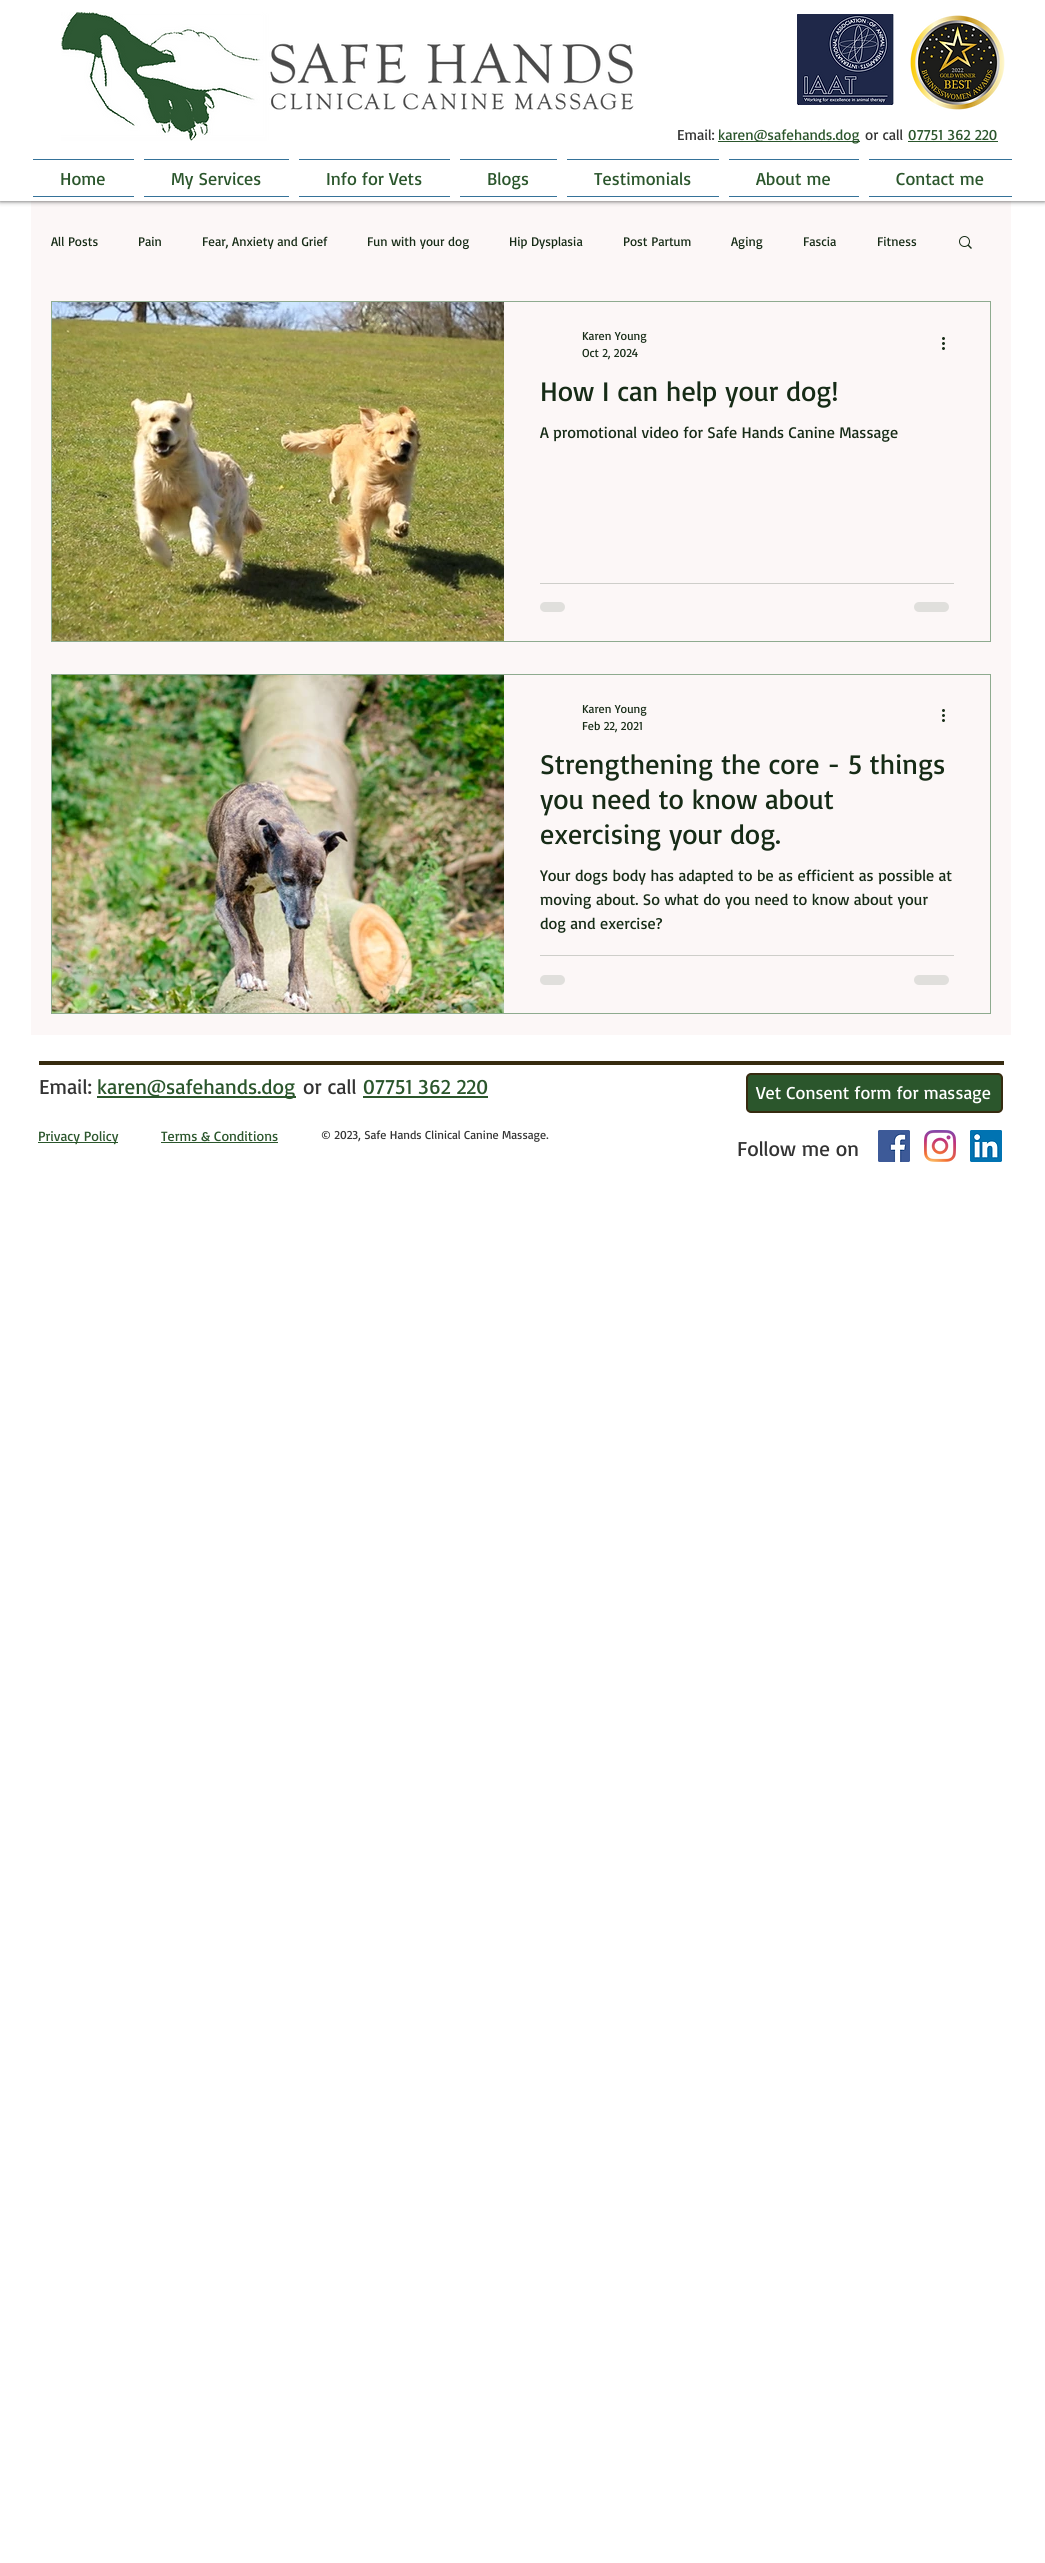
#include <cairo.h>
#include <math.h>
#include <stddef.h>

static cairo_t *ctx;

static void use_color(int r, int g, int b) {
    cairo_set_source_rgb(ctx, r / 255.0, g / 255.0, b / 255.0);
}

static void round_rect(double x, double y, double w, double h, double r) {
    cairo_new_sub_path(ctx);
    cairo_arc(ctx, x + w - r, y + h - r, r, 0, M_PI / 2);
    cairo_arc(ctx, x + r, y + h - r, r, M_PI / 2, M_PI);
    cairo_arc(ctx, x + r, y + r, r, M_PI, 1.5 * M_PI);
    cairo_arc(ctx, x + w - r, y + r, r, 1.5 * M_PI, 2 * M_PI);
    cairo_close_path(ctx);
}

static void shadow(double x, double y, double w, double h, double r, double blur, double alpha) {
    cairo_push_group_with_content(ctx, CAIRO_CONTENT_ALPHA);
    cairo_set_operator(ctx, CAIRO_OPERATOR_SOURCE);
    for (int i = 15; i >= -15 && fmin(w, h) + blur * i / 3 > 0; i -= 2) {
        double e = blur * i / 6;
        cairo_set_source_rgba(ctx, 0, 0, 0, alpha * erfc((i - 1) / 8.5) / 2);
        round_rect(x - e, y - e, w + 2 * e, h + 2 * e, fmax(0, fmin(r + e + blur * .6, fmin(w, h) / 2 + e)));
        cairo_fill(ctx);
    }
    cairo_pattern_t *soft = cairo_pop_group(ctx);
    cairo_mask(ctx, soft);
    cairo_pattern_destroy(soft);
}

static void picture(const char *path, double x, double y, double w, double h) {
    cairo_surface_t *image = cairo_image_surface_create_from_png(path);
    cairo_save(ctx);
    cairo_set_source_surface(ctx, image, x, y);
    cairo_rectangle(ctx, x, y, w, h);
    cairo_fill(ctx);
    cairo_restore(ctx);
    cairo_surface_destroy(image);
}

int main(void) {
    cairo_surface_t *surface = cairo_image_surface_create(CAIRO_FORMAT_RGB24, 1045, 2563);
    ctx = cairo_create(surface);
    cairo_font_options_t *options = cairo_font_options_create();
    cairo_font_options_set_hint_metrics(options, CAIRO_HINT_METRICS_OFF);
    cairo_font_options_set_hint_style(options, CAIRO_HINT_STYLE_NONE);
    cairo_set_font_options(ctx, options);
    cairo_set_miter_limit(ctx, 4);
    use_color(255, 255, 255);
    cairo_paint(ctx);
    use_color(252, 247, 247);
    cairo_rectangle(ctx, 31, 201, 980, 834);
    cairo_fill(ctx);
    use_color(0, 0, 0);
    shadow(0, 0, 1045, 201, 0, 2.5, 0.7);
    use_color(255, 255, 255);
    cairo_rectangle(ctx, 0, 0, 1045, 201);
    cairo_fill(ctx);
    picture("img1.png", 61, 12, 573, 129);
    picture("img2.png", 797, 14, 97, 91);
    picture("img3.png", 910, 15, 95, 95);
    cairo_select_font_face(ctx, "Basic", CAIRO_FONT_SLANT_NORMAL, CAIRO_FONT_WEIGHT_NORMAL);
    cairo_set_font_size(ctx, 15);
    use_color(51, 51, 51);
    cairo_move_to(ctx, 677, 140);
    cairo_show_text(ctx, "Email:");
    use_color(43, 86, 44);
    cairo_rectangle(ctx, 718, 141, 142, 1);
    cairo_fill(ctx);
    cairo_move_to(ctx, 718, 140);
    cairo_show_text(ctx, "karen@safehands.dog");
    use_color(51, 51, 51);
    cairo_move_to(ctx, 865, 140);
    cairo_show_text(ctx, "or call");
    use_color(43, 86, 44);
    cairo_move_to(ctx, 908, 140);
    cairo_show_text(ctx, "07751 362 220");
    cairo_rectangle(ctx, 908, 141, 90, 1);
    cairo_fill(ctx);
    use_color(53, 114, 153);
    cairo_rectangle(ctx, 33, 159, 101, 1);
    cairo_fill(ctx);
    cairo_rectangle(ctx, 33, 196, 101, 1);
    cairo_fill(ctx);
    cairo_set_font_size(ctx, 18);
    use_color(43, 86, 44);
    cairo_move_to(ctx, 60, 185);
    cairo_show_text(ctx, "Home");
    use_color(53, 114, 153);
    cairo_rectangle(ctx, 144, 159, 145, 1);
    cairo_fill(ctx);
    cairo_rectangle(ctx, 144, 196, 145, 1);
    cairo_fill(ctx);
    use_color(43, 86, 44);
    cairo_move_to(ctx, 171, 185);
    cairo_show_text(ctx, "My Services");
    use_color(53, 114, 153);
    cairo_rectangle(ctx, 299, 159, 151, 1);
    cairo_fill(ctx);
    cairo_rectangle(ctx, 299, 196, 151, 1);
    cairo_fill(ctx);
    use_color(43, 86, 44);
    cairo_move_to(ctx, 326, 185);
    cairo_show_text(ctx, "Info for Vets");
    use_color(53, 114, 153);
    cairo_rectangle(ctx, 460, 159, 97, 1);
    cairo_fill(ctx);
    cairo_rectangle(ctx, 460, 196, 97, 1);
    cairo_fill(ctx);
    use_color(43, 86, 44);
    cairo_move_to(ctx, 487, 185);
    cairo_show_text(ctx, "Blogs");
    use_color(53, 114, 153);
    cairo_rectangle(ctx, 567, 159, 152, 1);
    cairo_fill(ctx);
    cairo_rectangle(ctx, 567, 196, 152, 1);
    cairo_fill(ctx);
    use_color(43, 86, 44);
    cairo_move_to(ctx, 594, 185);
    cairo_show_text(ctx, "Testimonials");
    use_color(53, 114, 153);
    cairo_rectangle(ctx, 729, 159, 130, 1);
    cairo_fill(ctx);
    cairo_rectangle(ctx, 729, 196, 130, 1);
    cairo_fill(ctx);
    use_color(43, 86, 44);
    cairo_move_to(ctx, 756, 185);
    cairo_show_text(ctx, "About me");
    use_color(53, 114, 153);
    cairo_rectangle(ctx, 869, 159, 143, 1);
    cairo_fill(ctx);
    cairo_rectangle(ctx, 869, 196, 143, 1);
    cairo_fill(ctx);
    use_color(43, 86, 44);
    cairo_move_to(ctx, 896, 185);
    cairo_show_text(ctx, "Contact me");
    cairo_set_font_size(ctx, 13);
    use_color(22, 43, 22);
    cairo_move_to(ctx, 51, 246);
    cairo_show_text(ctx, "All Posts");
    cairo_move_to(ctx, 138, 246);
    cairo_show_text(ctx, "Pain");
    cairo_move_to(ctx, 202, 246);
    cairo_show_text(ctx, "Fear, Anxiety and Grief");
    cairo_move_to(ctx, 367, 246);
    cairo_show_text(ctx, "Fun with your dog");
    cairo_move_to(ctx, 509, 246);
    cairo_show_text(ctx, "Hip Dysplasia");
    cairo_move_to(ctx, 623, 246);
    cairo_show_text(ctx, "Post Partum");
    cairo_move_to(ctx, 731, 246);
    cairo_show_text(ctx, "Aging");
    cairo_move_to(ctx, 803, 246);
    cairo_show_text(ctx, "Fascia");
    cairo_move_to(ctx, 877, 246);
    cairo_show_text(ctx, "Fitness");
    picture("img4.png", 959, 236, 13, 13);
    cairo_rectangle(ctx, 51.5, 301.5, 939, 340);
    use_color(142, 171, 143);
    cairo_set_line_width(ctx, 1);
    cairo_stroke(ctx);
    picture("img5.png", 52, 302, 452, 339);
    cairo_set_font_size(ctx, 12);
    use_color(22, 43, 22);
    cairo_move_to(ctx, 582, 340);
    cairo_show_text(ctx, "Karen Young");
    cairo_move_to(ctx, 582, 357);
    cairo_show_text(ctx, "Oct 2, 2024");
    picture("img6.png", 942, 337, 3, 13);
    cairo_set_font_size(ctx, 28);
    cairo_move_to(ctx, 540, 401);
    cairo_show_text(ctx, "How I can help your dog!");
    cairo_set_font_size(ctx, 16);
    cairo_move_to(ctx, 540, 438);
    cairo_show_text(ctx, "A promotional video for Safe Hands Canine Massage");
    use_color(206, 206, 202);
    cairo_rectangle(ctx, 540, 583, 414, 1);
    cairo_fill(ctx);
    use_color(224, 223, 220);
    round_rect(540, 602, 25, 10, 5);
    cairo_fill(ctx);
    round_rect(914, 602, 35, 10, 5);
    cairo_fill(ctx);
    cairo_rectangle(ctx, 51.5, 674.5, 939, 339);
    use_color(142, 171, 143);
    cairo_stroke(ctx);
    picture("img7.png", 52, 675, 452, 338);
    cairo_set_font_size(ctx, 12);
    use_color(22, 43, 22);
    cairo_move_to(ctx, 582, 713);
    cairo_show_text(ctx, "Karen Young");
    cairo_move_to(ctx, 582, 730);
    cairo_show_text(ctx, "Feb 22, 2021");
    picture("img6.png", 942, 709, 3, 13);
    cairo_set_font_size(ctx, 28);
    cairo_move_to(ctx, 540, 774);
    cairo_show_text(ctx, "Strengthening the core - 5 things");
    cairo_move_to(ctx, 540, 809);
    cairo_show_text(ctx, "you need to know about");
    cairo_move_to(ctx, 540, 844);
    cairo_show_text(ctx, "exercising your dog.");
    cairo_set_font_size(ctx, 16);
    cairo_move_to(ctx, 540, 881);
    cairo_show_text(ctx, "Your dogs body has adapted to be as efficient as possible at");
    cairo_move_to(ctx, 540, 905);
    cairo_show_text(ctx, "moving about. So what do you need to know about your");
    cairo_move_to(ctx, 540, 929);
    cairo_show_text(ctx, "dog and exercise?");
    use_color(206, 206, 202);
    cairo_rectangle(ctx, 540, 955, 414, 1);
    cairo_fill(ctx);
    use_color(224, 223, 220);
    round_rect(540, 975, 25, 10, 5);
    cairo_fill(ctx);
    round_rect(914, 975, 35, 10, 5);
    cairo_fill(ctx);
    use_color(54, 43, 16);
    cairo_rectangle(ctx, 39, 1061, 965, 4);
    cairo_fill(ctx);
    cairo_set_font_size(ctx, 21);
    use_color(51, 51, 51);
    cairo_move_to(ctx, 39, 1094);
    cairo_show_text(ctx, "Email:");
    use_color(43, 86, 44);
    cairo_rectangle(ctx, 97, 1096, 199, 2);
    cairo_fill(ctx);
    cairo_move_to(ctx, 97, 1094);
    cairo_show_text(ctx, "karen@safehands.dog");
    use_color(51, 51, 51);
    cairo_move_to(ctx, 303, 1094);
    cairo_show_text(ctx, "or call");
    use_color(43, 86, 44);
    cairo_move_to(ctx, 363, 1094);
    cairo_show_text(ctx, "07751 362 220");
    cairo_rectangle(ctx, 363, 1096, 125, 2);
    cairo_fill(ctx);
    round_rect(747, 1074, 255, 38, 4);
    cairo_fill_preserve(ctx);
    use_color(54, 43, 16);
    cairo_set_line_width(ctx, 2);
    cairo_stroke(ctx);
    cairo_set_font_size(ctx, 18);
    use_color(255, 255, 255);
    cairo_move_to(ctx, 756, 1099);
    cairo_show_text(ctx, "Vet Consent form for massage");
    use_color(43, 86, 44);
    cairo_rectangle(ctx, 38, 1142, 80, 1);
    cairo_fill(ctx);
    cairo_set_font_size(ctx, 14);
    cairo_move_to(ctx, 38, 1141);
    cairo_show_text(ctx, "Privacy Policy");
    cairo_move_to(ctx, 161, 1141);
    cairo_show_text(ctx, "Terms & Conditions");
    cairo_rectangle(ctx, 161, 1142, 117, 1);
    cairo_fill(ctx);
    cairo_set_font_size(ctx, 12);
    use_color(51, 51, 51);
    cairo_move_to(ctx, 321, 1139);
    cairo_show_text(ctx, "© 2023, Safe Hands Clinical Canine Massage.");
    picture("img8.png", 878, 1130, 32, 32);
    picture("img9.png", 924, 1130, 32, 32);
    picture("img10.png", 970, 1130, 32, 32);
    cairo_set_font_size(ctx, 21);
    cairo_move_to(ctx, 737, 1156);
    cairo_show_text(ctx, "Follow me on");
    cairo_surface_write_to_png(surface, "result.png");
    cairo_font_options_destroy(options);
    cairo_destroy(ctx);
    cairo_surface_destroy(surface);
    return 0;
}
